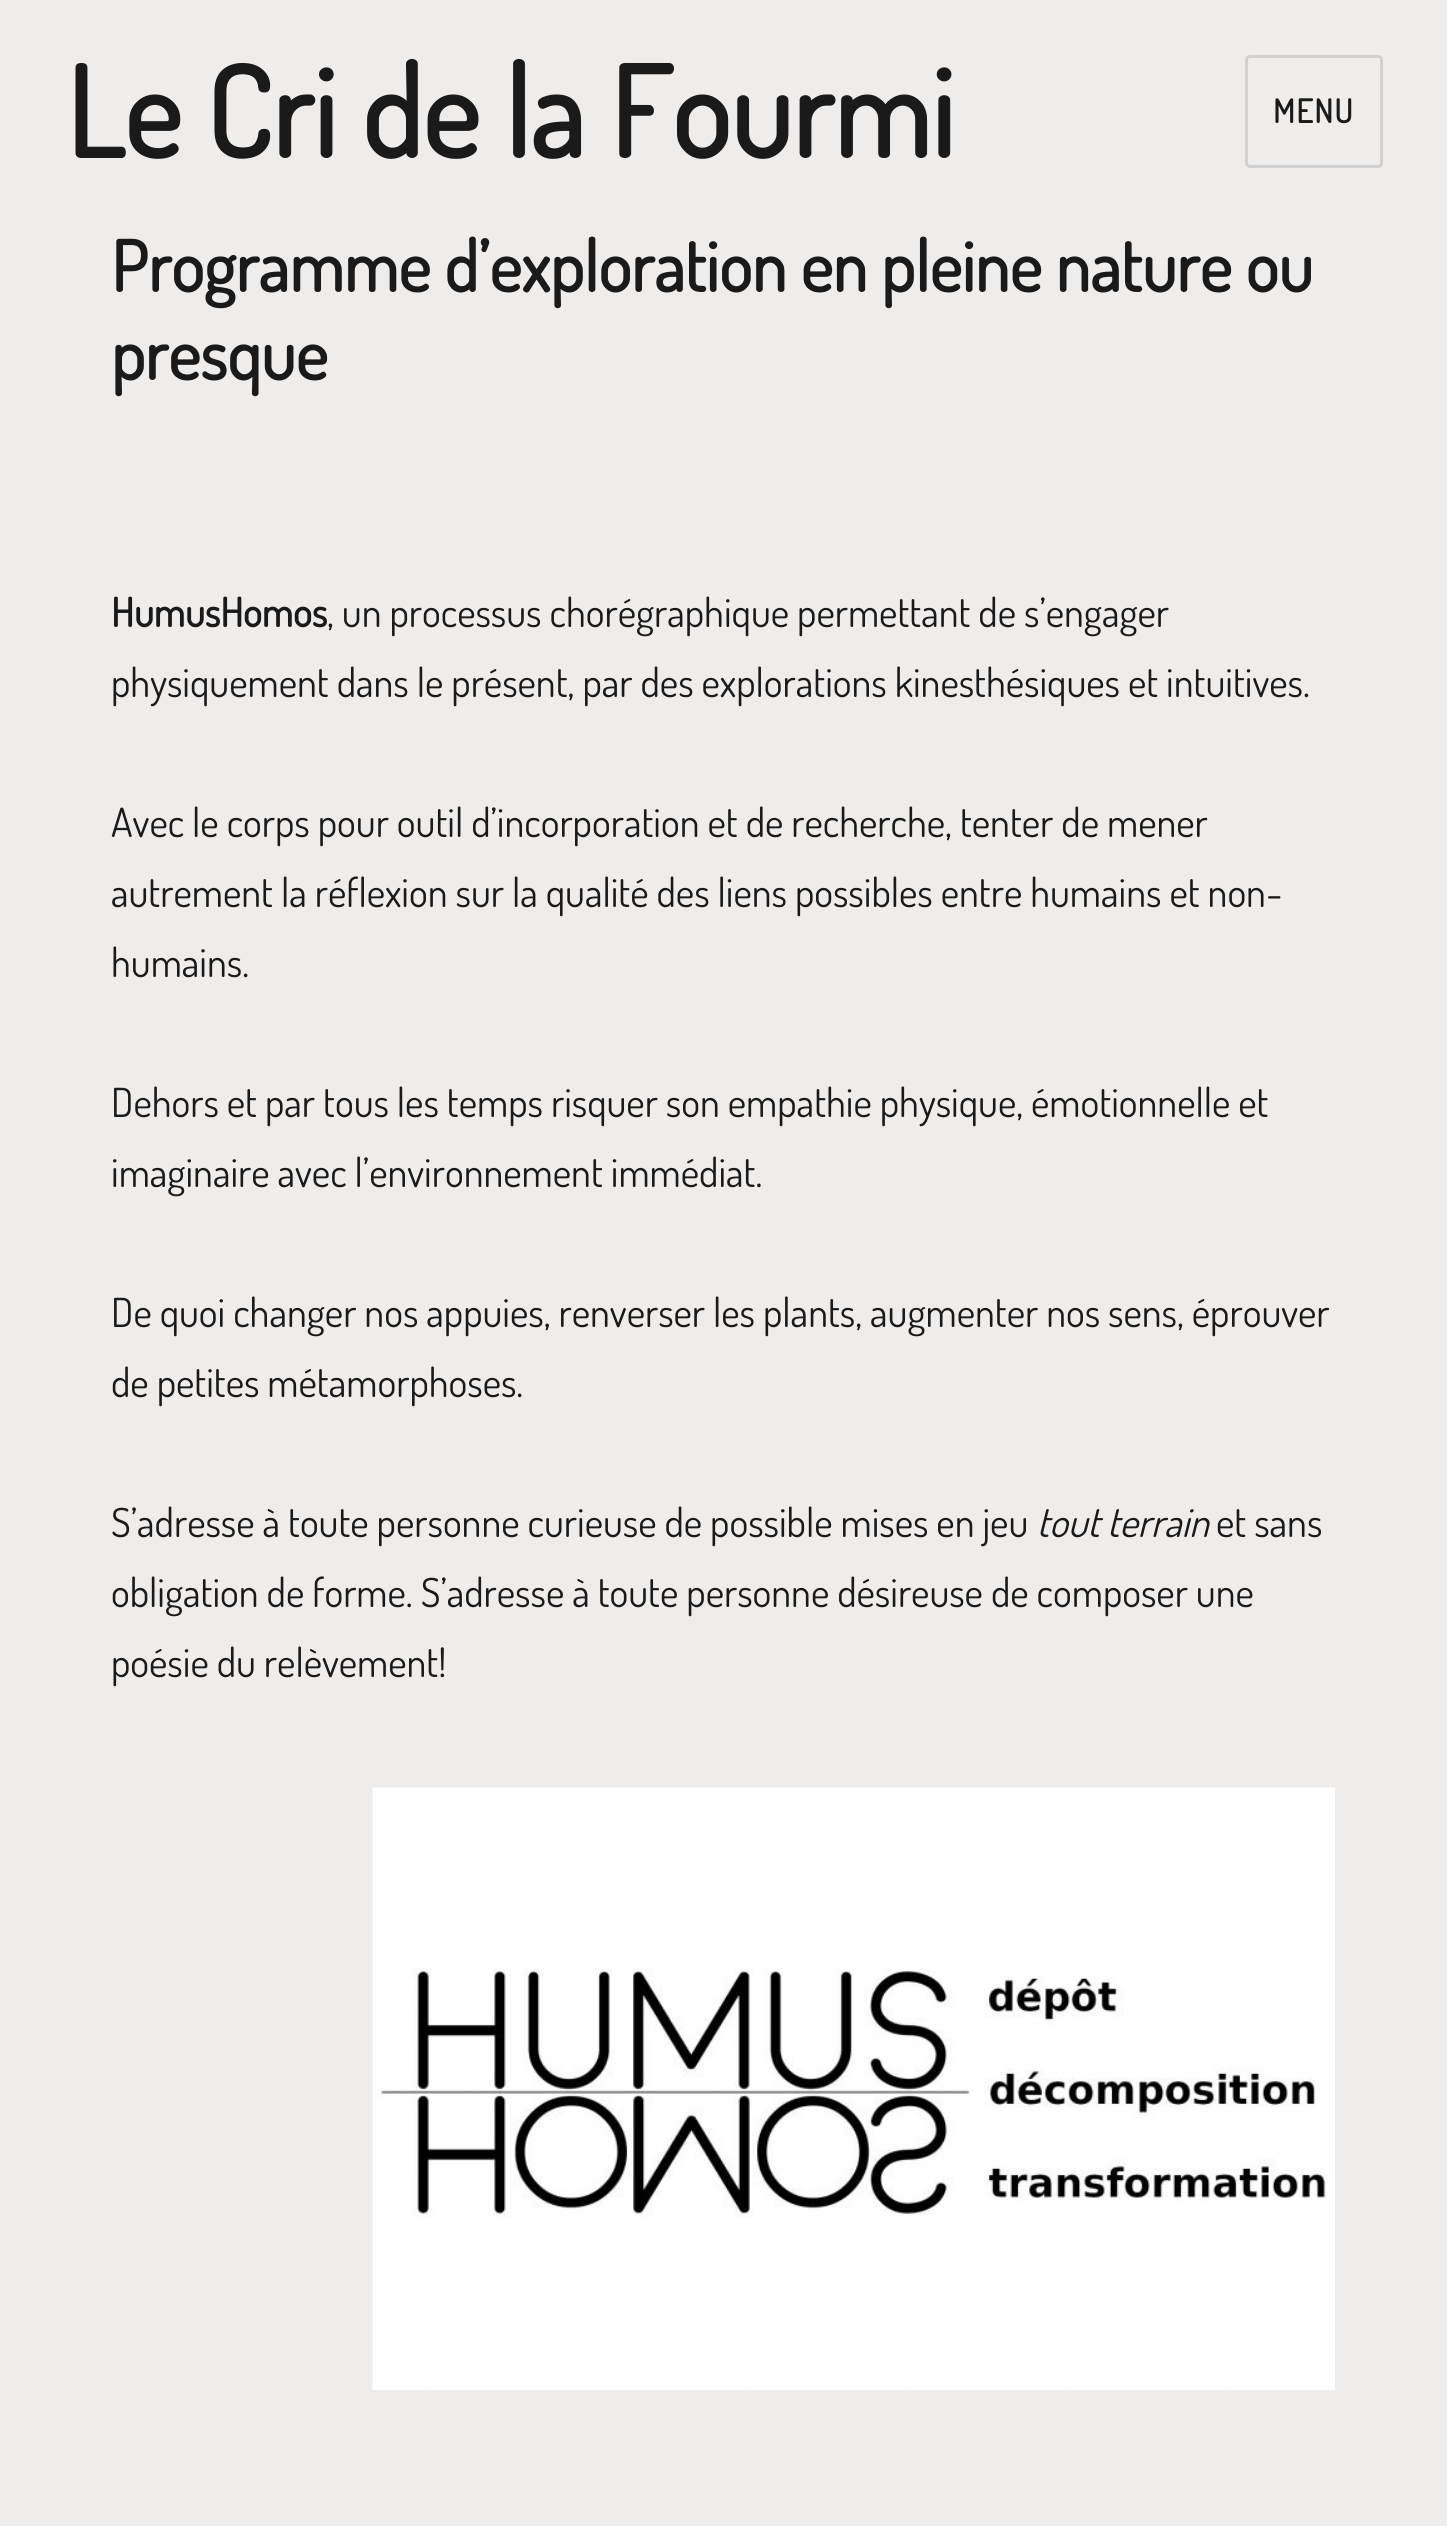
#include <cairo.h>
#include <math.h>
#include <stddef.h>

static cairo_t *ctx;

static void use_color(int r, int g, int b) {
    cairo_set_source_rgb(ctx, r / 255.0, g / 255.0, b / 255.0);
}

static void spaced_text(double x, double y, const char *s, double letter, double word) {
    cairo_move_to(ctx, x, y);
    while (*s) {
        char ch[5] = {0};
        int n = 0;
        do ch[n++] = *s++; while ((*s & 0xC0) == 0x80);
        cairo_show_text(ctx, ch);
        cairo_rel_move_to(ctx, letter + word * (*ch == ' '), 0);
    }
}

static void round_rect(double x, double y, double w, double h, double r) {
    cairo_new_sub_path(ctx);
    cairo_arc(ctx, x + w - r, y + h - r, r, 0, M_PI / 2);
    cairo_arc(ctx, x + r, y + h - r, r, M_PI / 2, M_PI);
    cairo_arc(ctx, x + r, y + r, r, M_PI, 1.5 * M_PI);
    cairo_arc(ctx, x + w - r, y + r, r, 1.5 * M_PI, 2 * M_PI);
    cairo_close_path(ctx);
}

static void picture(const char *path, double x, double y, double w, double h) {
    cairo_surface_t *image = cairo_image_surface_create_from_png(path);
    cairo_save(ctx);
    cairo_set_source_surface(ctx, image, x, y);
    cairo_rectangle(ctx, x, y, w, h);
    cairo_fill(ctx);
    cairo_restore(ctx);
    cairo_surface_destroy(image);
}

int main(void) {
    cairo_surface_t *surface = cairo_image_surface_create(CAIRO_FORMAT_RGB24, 1447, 2526);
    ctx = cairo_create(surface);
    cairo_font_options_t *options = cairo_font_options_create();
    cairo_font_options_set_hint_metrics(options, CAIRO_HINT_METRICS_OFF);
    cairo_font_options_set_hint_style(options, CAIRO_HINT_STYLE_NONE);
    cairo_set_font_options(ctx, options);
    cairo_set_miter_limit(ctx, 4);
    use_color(239, 237, 236);
    cairo_paint(ctx);
    cairo_select_font_face(ctx, "Dosis", CAIRO_FONT_SLANT_NORMAL, CAIRO_FONT_WEIGHT_BOLD);
    cairo_set_font_size(ctx, 125);
    use_color(26, 26, 26);
    cairo_move_to(ctx, 66, 158);
    cairo_show_text(ctx, "Le Cri de la Fourmi");
    round_rect(1246.5, 56.5, 135, 110, 3.5);
    use_color(209, 209, 209);
    cairo_set_line_width(ctx, 3);
    cairo_stroke(ctx);
    cairo_set_font_size(ctx, 32.5);
    use_color(26, 26, 26);
    spaced_text(1273, 123, "MENU", 1.5, 0);
    cairo_set_font_size(ctx, 70);
    cairo_move_to(ctx, 111, 292);
    cairo_show_text(ctx, "Programme d’exploration en pleine nature ou");
    cairo_move_to(ctx, 111, 380);
    cairo_show_text(ctx, "presque");
    cairo_set_font_size(ctx, 40);
    cairo_move_to(ctx, 111, 627);
    cairo_show_text(ctx, "HumusHomos");
    cairo_select_font_face(ctx, "Dosis", CAIRO_FONT_SLANT_NORMAL, CAIRO_FONT_WEIGHT_NORMAL);
    cairo_move_to(ctx, 327, 627);
    cairo_show_text(ctx, ", un processus chorégraphique permettant de s’engager");
    cairo_move_to(ctx, 111, 697);
    cairo_show_text(ctx, "physiquement dans le présent, par des explorations kinesthésiques et intuitives.");
    cairo_move_to(ctx, 111, 837);
    cairo_show_text(ctx, "Avec le corps pour outil d’incorporation et de recherche, tenter de mener");
    cairo_move_to(ctx, 111, 907);
    cairo_show_text(ctx, "autrement la réflexion sur la qualité des liens possibles entre humains et non-");
    cairo_move_to(ctx, 111, 977);
    cairo_show_text(ctx, "humains.");
    cairo_move_to(ctx, 111, 1117);
    cairo_show_text(ctx, "Dehors et par tous les temps risquer son empathie physique, émotionnelle et");
    cairo_move_to(ctx, 111, 1187);
    cairo_show_text(ctx, "imaginaire avec l’environnement immédiat.");
    cairo_move_to(ctx, 111, 1327);
    cairo_show_text(ctx, "De quoi changer nos appuies, renverser les plants, augmenter nos sens, éprouver");
    cairo_move_to(ctx, 111, 1397);
    cairo_show_text(ctx, "de petites métamorphoses.");
    cairo_move_to(ctx, 111, 1537);
    cairo_show_text(ctx, "S’adresse à toute personne curieuse de possible mises en jeu");
    cairo_select_font_face(ctx, "Dosis", CAIRO_FONT_SLANT_ITALIC, CAIRO_FONT_WEIGHT_NORMAL);
    cairo_move_to(ctx, 1037, 1537);
    cairo_show_text(ctx, "tout terrain");
    cairo_select_font_face(ctx, "Dosis", CAIRO_FONT_SLANT_NORMAL, CAIRO_FONT_WEIGHT_NORMAL);
    cairo_move_to(ctx, 1216, 1537);
    cairo_show_text(ctx, "et sans");
    cairo_move_to(ctx, 111, 1607);
    cairo_show_text(ctx, "obligation de forme. S’adresse à toute personne désireuse de composer une");
    cairo_move_to(ctx, 111, 1677);
    cairo_show_text(ctx, "poésie du relèvement!");
    picture("img1.png", 372, 1787, 963, 603);
    cairo_surface_write_to_png(surface, "result.png");
    cairo_font_options_destroy(options);
    cairo_destroy(ctx);
    cairo_surface_destroy(surface);
    return 0;
}
